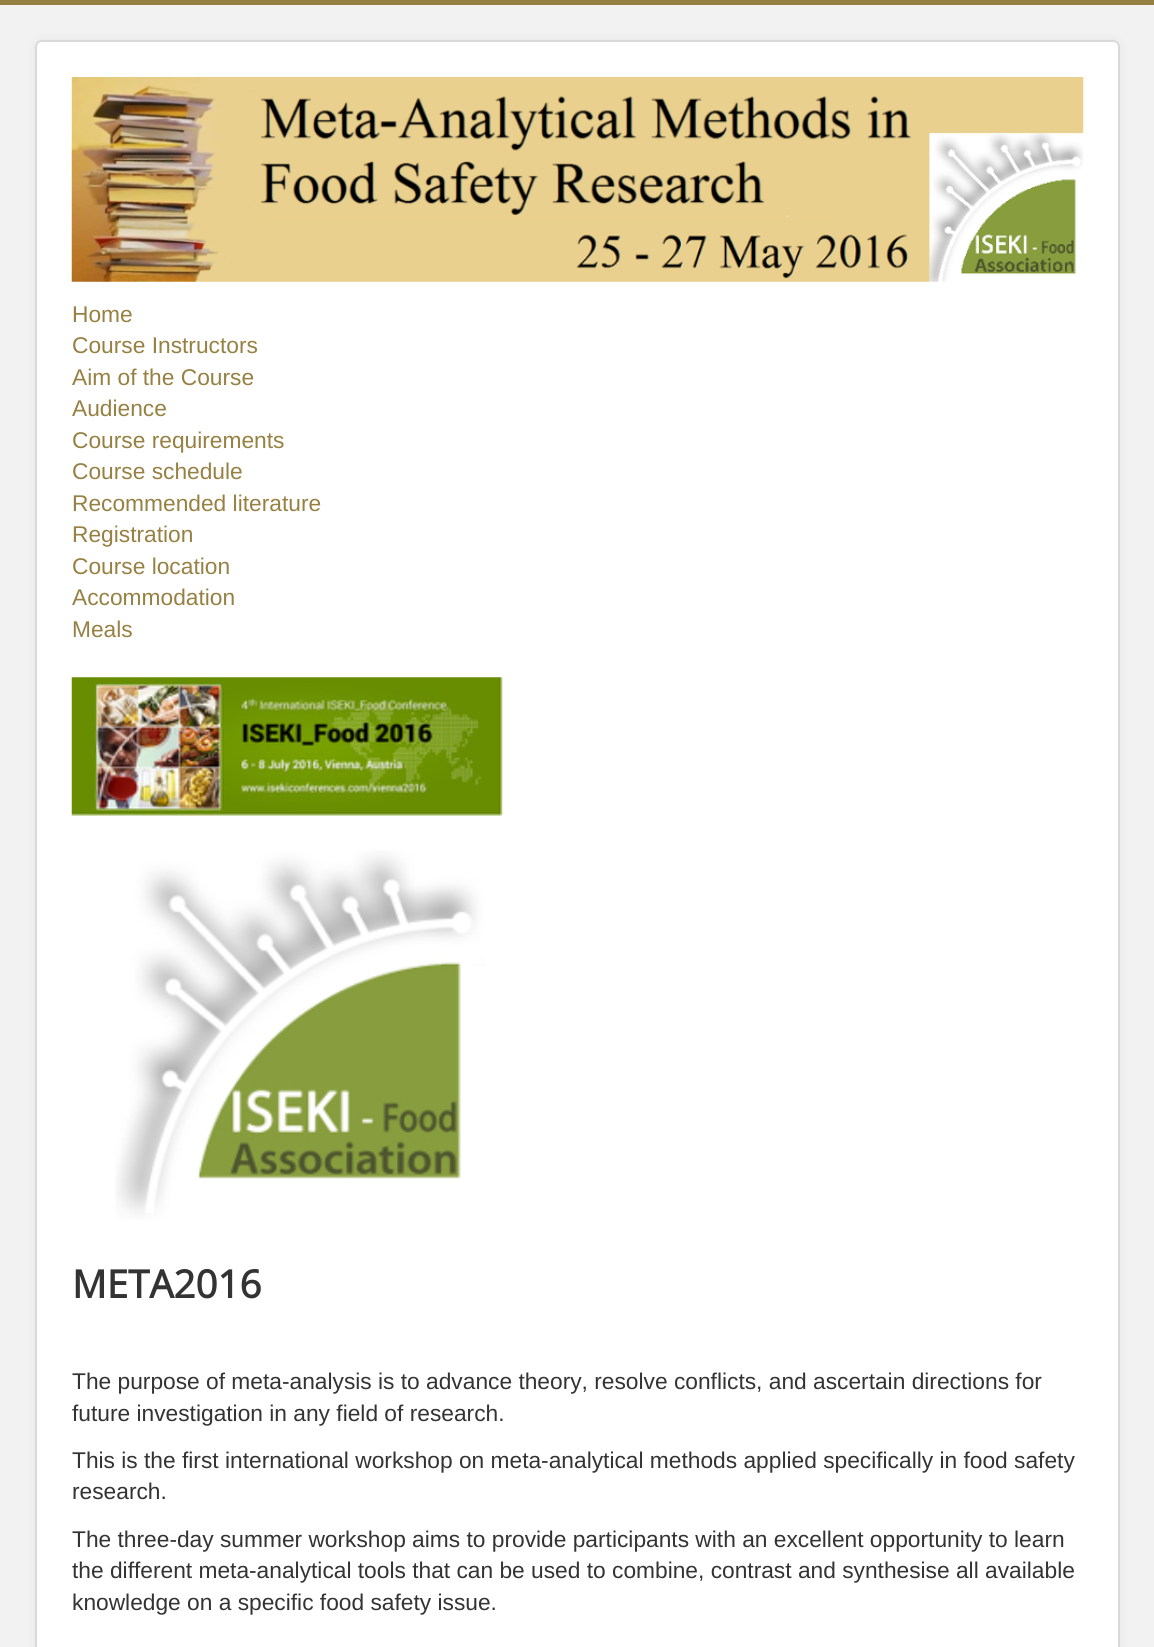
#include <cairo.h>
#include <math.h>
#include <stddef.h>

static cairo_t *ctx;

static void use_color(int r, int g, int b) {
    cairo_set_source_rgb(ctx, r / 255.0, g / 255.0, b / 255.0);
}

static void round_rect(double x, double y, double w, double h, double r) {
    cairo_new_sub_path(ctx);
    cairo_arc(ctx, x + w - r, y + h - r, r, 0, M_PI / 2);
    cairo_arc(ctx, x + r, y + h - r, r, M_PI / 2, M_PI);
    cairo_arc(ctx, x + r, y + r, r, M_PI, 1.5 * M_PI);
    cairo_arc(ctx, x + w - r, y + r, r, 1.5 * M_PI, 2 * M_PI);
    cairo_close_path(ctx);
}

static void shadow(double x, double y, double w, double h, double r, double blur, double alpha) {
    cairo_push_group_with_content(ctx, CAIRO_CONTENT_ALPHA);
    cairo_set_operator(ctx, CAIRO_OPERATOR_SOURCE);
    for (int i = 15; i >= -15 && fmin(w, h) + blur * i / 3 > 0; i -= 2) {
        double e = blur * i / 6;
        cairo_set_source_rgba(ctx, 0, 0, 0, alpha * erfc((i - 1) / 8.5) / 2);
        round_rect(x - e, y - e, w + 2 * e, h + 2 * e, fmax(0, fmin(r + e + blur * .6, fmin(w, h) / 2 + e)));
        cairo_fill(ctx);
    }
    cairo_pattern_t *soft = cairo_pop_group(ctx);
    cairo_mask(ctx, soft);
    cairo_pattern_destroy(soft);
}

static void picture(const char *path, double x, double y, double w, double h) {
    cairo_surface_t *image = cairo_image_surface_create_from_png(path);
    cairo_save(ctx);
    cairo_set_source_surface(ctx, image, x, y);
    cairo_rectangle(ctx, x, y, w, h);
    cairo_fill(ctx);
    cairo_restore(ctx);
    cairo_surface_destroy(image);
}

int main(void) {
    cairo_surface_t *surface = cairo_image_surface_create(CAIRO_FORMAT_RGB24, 1154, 1647);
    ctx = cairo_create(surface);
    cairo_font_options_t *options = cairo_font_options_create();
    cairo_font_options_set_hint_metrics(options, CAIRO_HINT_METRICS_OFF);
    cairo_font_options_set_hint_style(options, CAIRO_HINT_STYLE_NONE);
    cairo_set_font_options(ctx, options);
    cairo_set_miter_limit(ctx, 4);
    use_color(242, 242, 242);
    cairo_paint(ctx);
    use_color(150, 128, 66);
    cairo_rectangle(ctx, 0, 0, 1154, 5);
    cairo_fill(ctx);
    use_color(0, 0, 0);
    shadow(35, 40, 1085, 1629, 7, 5, 0.05);
    use_color(255, 255, 255);
    round_rect(35, 40, 1085, 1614, 7);
    cairo_fill(ctx);
    round_rect(36, 41, 1083, 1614, 6);
    cairo_set_source_rgba(ctx, 0, 0, 0, 0.15);
    cairo_stroke(ctx);
    picture("img1.png", 71, 77, 1013, 205);
    cairo_select_font_face(ctx, "Liberation Sans", CAIRO_FONT_SLANT_NORMAL, CAIRO_FONT_WEIGHT_NORMAL);
    cairo_set_font_size(ctx, 22.75);
    use_color(150, 128, 66);
    cairo_move_to(ctx, 72, 322);
    cairo_show_text(ctx, "Home");
    cairo_move_to(ctx, 72, 353);
    cairo_show_text(ctx, "Course Instructors");
    cairo_move_to(ctx, 72, 385);
    cairo_show_text(ctx, "Aim of the Course");
    cairo_move_to(ctx, 72, 416);
    cairo_show_text(ctx, "Audience");
    cairo_move_to(ctx, 72, 448);
    cairo_show_text(ctx, "Course requirements");
    cairo_move_to(ctx, 72, 479);
    cairo_show_text(ctx, "Course schedule");
    cairo_move_to(ctx, 72, 511);
    cairo_show_text(ctx, "Recommended literature");
    cairo_move_to(ctx, 72, 542);
    cairo_show_text(ctx, "Registration");
    cairo_move_to(ctx, 72, 574);
    cairo_show_text(ctx, "Course location");
    cairo_move_to(ctx, 72, 605);
    cairo_show_text(ctx, "Accommodation");
    cairo_move_to(ctx, 72, 637);
    cairo_show_text(ctx, "Meals");
    picture("img2.png", 71, 677, 432, 139);
    picture("img3.png", 115, 850, 370, 370);
    cairo_select_font_face(ctx, "Open Sans", CAIRO_FONT_SLANT_NORMAL, CAIRO_FONT_WEIGHT_BOLD);
    cairo_set_font_size(ctx, 38.5);
    use_color(51, 51, 51);
    cairo_move_to(ctx, 72, 1298);
    cairo_show_text(ctx, "META2016");
    cairo_select_font_face(ctx, "Liberation Sans", CAIRO_FONT_SLANT_NORMAL, CAIRO_FONT_WEIGHT_NORMAL);
    cairo_set_font_size(ctx, 22.75);
    cairo_move_to(ctx, 72, 1389);
    cairo_show_text(ctx, "The purpose of meta-analysis is to advance theory, resolve conflicts, and ascertain directions for");
    cairo_move_to(ctx, 72, 1421);
    cairo_show_text(ctx, "future investigation in any field of research.");
    cairo_move_to(ctx, 72, 1468);
    cairo_show_text(ctx, "This is the first international workshop on meta-analytical methods applied specifically in food safety");
    cairo_move_to(ctx, 72, 1499);
    cairo_show_text(ctx, "research.");
    cairo_move_to(ctx, 72, 1547);
    cairo_show_text(ctx, "The three-day summer workshop aims to provide participants with an excellent opportunity to learn");
    cairo_move_to(ctx, 72, 1578);
    cairo_show_text(ctx, "the different meta-analytical tools that can be used to combine, contrast and synthesise all available");
    cairo_move_to(ctx, 72, 1610);
    cairo_show_text(ctx, "knowledge on a specific food safety issue.");
    cairo_surface_write_to_png(surface, "result.png");
    cairo_font_options_destroy(options);
    cairo_destroy(ctx);
    cairo_surface_destroy(surface);
    return 0;
}
